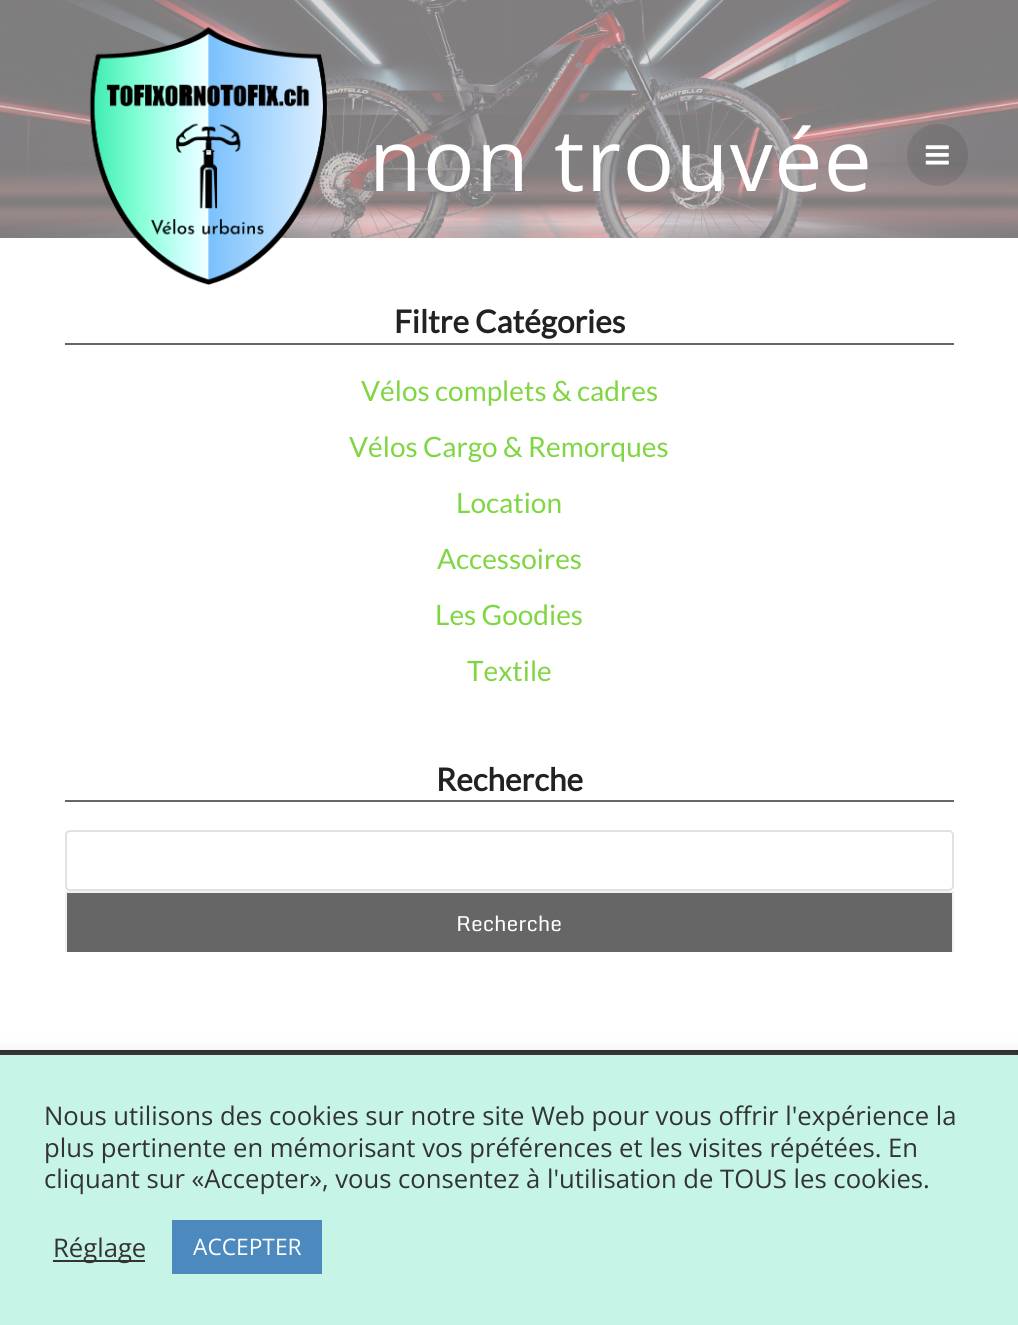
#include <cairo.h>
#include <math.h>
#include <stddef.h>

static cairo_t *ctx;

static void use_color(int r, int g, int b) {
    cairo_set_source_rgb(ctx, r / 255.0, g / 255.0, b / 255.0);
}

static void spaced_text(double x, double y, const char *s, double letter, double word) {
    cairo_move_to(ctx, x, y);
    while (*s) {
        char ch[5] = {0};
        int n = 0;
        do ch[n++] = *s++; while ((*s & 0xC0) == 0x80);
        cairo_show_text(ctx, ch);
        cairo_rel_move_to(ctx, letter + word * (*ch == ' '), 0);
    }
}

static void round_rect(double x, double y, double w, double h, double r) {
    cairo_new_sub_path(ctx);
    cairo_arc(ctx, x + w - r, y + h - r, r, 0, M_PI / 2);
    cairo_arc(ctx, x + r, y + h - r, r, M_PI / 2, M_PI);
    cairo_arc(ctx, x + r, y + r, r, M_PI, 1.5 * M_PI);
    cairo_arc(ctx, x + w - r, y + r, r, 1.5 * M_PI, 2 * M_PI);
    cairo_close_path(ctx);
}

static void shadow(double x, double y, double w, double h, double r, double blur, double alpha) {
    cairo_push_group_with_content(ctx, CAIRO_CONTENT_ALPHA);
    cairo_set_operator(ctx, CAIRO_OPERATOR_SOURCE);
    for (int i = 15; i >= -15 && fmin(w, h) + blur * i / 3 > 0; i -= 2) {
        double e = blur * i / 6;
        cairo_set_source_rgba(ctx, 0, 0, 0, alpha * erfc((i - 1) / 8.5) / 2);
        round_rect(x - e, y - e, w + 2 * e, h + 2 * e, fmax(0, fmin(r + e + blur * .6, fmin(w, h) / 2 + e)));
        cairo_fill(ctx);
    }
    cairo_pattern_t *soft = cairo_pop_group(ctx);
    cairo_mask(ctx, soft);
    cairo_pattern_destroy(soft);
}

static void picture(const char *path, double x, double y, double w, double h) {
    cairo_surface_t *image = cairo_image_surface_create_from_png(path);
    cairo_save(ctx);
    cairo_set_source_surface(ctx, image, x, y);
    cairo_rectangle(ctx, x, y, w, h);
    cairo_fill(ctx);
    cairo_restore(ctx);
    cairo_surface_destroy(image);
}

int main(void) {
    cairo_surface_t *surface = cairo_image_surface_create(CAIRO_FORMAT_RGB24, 1018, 1325);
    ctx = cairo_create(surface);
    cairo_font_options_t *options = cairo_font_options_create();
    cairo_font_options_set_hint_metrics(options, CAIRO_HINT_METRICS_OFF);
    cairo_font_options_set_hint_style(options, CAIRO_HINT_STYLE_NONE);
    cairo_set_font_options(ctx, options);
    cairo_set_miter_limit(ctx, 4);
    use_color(255, 255, 255);
    cairo_paint(ctx);
    picture("img3.png", 0, 0, 1018, 238);
    picture("img1.png", 89, 27, 239, 259);
    cairo_set_source_rgba(ctx, 0, 0, 0, 0.1);
    round_rect(907, 124, 61, 62, 30.5);
    cairo_fill(ctx);
    picture("img2.png", 925, 145, 24, 20);
    cairo_select_font_face(ctx, "Open Sans", CAIRO_FONT_SLANT_NORMAL, CAIRO_FONT_WEIGHT_NORMAL);
    cairo_set_font_size(ctx, 85.75);
    use_color(255, 255, 255);
    spaced_text(369, 191, "non trouvée", 1.5, 0);
    use_color(102, 102, 102);
    cairo_rectangle(ctx, 65, 343, 889, 2);
    cairo_fill(ctx);
    cairo_select_font_face(ctx, "Lato", CAIRO_FONT_SLANT_NORMAL, CAIRO_FONT_WEIGHT_BOLD);
    cairo_set_font_size(ctx, 31.5);
    use_color(34, 34, 34);
    cairo_move_to(ctx, 394, 333);
    cairo_show_text(ctx, "Filtre Catégories");
    cairo_select_font_face(ctx, "Lato", CAIRO_FONT_SLANT_NORMAL, CAIRO_FONT_WEIGHT_NORMAL);
    cairo_set_font_size(ctx, 28);
    use_color(127, 214, 66);
    cairo_move_to(ctx, 361, 401);
    cairo_show_text(ctx, "Vélos complets & cadres");
    cairo_move_to(ctx, 349, 457);
    cairo_show_text(ctx, "Vélos Cargo & Remorques");
    cairo_move_to(ctx, 456, 513);
    cairo_show_text(ctx, "Location");
    cairo_move_to(ctx, 437, 569);
    cairo_show_text(ctx, "Accessoires");
    cairo_move_to(ctx, 435, 625);
    cairo_show_text(ctx, "Les Goodies");
    cairo_move_to(ctx, 467, 681);
    cairo_show_text(ctx, "Textile");
    use_color(102, 102, 102);
    cairo_rectangle(ctx, 65, 800, 889, 2);
    cairo_fill(ctx);
    cairo_select_font_face(ctx, "Lato", CAIRO_FONT_SLANT_NORMAL, CAIRO_FONT_WEIGHT_BOLD);
    cairo_set_font_size(ctx, 31.5);
    use_color(34, 34, 34);
    cairo_move_to(ctx, 436, 791);
    cairo_show_text(ctx, "Recherche");
    round_rect(66, 831, 887, 59, 4);
    use_color(225, 225, 225);
    cairo_stroke(ctx);
    use_color(102, 102, 102);
    cairo_rectangle(ctx, 67, 893, 885, 59);
    cairo_fill(ctx);
    use_color(241, 241, 241);
    cairo_rectangle(ctx, 65, 891, 889, 2);
    cairo_fill(ctx);
    cairo_rectangle(ctx, 952, 891, 2, 61);
    cairo_fill(ctx);
    cairo_rectangle(ctx, 65, 891, 2, 61);
    cairo_fill(ctx);
    cairo_select_font_face(ctx, "Monda", CAIRO_FONT_SLANT_NORMAL, CAIRO_FONT_WEIGHT_NORMAL);
    cairo_set_font_size(ctx, 21);
    use_color(255, 255, 255);
    cairo_move_to(ctx, 456, 931);
    cairo_show_text(ctx, "Recherche");
    use_color(34, 34, 34);
    cairo_rectangle(ctx, 0, 1050, 1018, 5);
    cairo_fill(ctx);
    use_color(172, 171, 171);
    shadow(0, 1054, 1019, 271, 0, 9, 0.3);
    use_color(198, 244, 230);
    cairo_rectangle(ctx, 0, 1055, 1018, 270);
    cairo_fill(ctx);
    cairo_select_font_face(ctx, "Open Sans", CAIRO_FONT_SLANT_NORMAL, CAIRO_FONT_WEIGHT_NORMAL);
    cairo_set_font_size(ctx, 25.65);
    use_color(51, 51, 51);
    cairo_move_to(ctx, 44, 1125);
    cairo_show_text(ctx, "Nous utilisons des cookies sur notre site Web pour vous offrir l'expérience la");
    cairo_move_to(ctx, 44, 1157);
    cairo_show_text(ctx, "plus pertinente en mémorisant vos préférences et les visites répétées. En");
    cairo_move_to(ctx, 44, 1188);
    cairo_show_text(ctx, "cliquant sur «Accepter», vous consentez à l'utilisation de TOUS les cookies.");
    cairo_rectangle(ctx, 53, 1260, 92, 2);
    cairo_fill(ctx);
    cairo_move_to(ctx, 53, 1257);
    cairo_show_text(ctx, "Réglage");
    use_color(76, 137, 191);
    cairo_rectangle(ctx, 172, 1220, 150, 54);
    cairo_fill(ctx);
    cairo_set_font_size(ctx, 22.75);
    use_color(255, 255, 255);
    cairo_move_to(ctx, 193, 1255);
    cairo_show_text(ctx, "ACCEPTER");
    cairo_surface_write_to_png(surface, "result.png");
    cairo_font_options_destroy(options);
    cairo_destroy(ctx);
    cairo_surface_destroy(surface);
    return 0;
}
